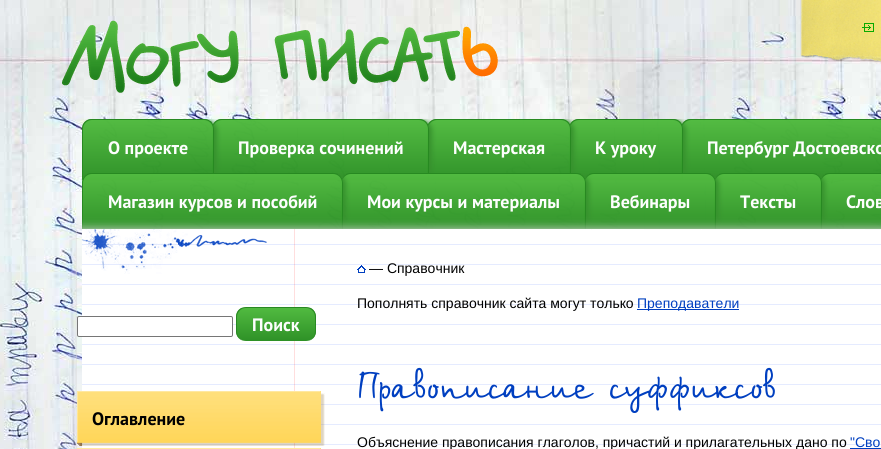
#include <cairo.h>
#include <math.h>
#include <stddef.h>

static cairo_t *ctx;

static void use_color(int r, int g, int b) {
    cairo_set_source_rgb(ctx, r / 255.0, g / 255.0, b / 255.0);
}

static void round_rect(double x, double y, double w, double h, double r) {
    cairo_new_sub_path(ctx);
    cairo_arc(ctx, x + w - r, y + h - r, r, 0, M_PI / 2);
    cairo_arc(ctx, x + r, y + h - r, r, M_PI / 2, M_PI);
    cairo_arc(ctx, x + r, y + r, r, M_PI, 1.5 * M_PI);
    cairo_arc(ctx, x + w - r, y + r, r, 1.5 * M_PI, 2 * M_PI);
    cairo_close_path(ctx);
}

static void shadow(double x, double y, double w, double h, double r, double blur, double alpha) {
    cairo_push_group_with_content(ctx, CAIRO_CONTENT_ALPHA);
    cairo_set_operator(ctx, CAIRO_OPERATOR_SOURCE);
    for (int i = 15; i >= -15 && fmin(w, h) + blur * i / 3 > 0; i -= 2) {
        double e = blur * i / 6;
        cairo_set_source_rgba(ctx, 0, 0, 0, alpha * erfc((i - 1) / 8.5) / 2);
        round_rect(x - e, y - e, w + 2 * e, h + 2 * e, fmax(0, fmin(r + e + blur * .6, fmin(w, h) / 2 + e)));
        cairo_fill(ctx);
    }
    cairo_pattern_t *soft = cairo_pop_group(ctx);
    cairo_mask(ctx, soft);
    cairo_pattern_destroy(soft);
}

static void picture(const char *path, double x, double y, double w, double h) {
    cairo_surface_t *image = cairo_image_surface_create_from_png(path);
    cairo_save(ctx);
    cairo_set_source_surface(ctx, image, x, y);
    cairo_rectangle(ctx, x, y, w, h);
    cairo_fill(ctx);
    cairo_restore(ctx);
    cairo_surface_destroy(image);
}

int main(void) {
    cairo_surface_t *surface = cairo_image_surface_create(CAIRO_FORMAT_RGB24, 881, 449);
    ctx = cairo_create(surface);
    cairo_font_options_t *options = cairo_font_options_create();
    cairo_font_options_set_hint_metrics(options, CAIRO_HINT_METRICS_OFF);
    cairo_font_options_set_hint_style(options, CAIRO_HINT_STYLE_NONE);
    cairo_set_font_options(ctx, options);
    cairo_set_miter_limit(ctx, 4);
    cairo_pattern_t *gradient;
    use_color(255, 255, 255);
    cairo_paint(ctx);
    picture("img1.png", 0, 0, 881, 449);
    picture("img2.png", 62, 20, 436, 73);
    picture("img3.png", 800, 0, 81, 63);
    picture("img4.png", 862, 23, 12, 9);
    cairo_save(ctx);
    cairo_rectangle(ctx, 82, 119, 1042, 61);
    cairo_clip(ctx);
    cairo_set_fill_rule(ctx, CAIRO_FILL_RULE_EVEN_ODD);
    cairo_new_path(ctx);
    cairo_move_to(ctx, 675, 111);
    cairo_line_to(ctx, 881, 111);
    cairo_line_to(ctx, 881, 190);
    cairo_line_to(ctx, 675, 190);
    cairo_close_path(ctx);
    cairo_move_to(ctx, 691, 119);
    cairo_line_to(ctx, 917, 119);
    cairo_curve_to(ctx, 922.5, 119, 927, 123.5, 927, 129);
    cairo_line_to(ctx, 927, 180);
    cairo_line_to(ctx, 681, 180);
    cairo_line_to(ctx, 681, 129);
    cairo_curve_to(ctx, 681, 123.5, 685.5, 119, 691, 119);
    cairo_close_path(ctx);
    cairo_clip(ctx);
    use_color(54, 145, 45);
    shadow(684, 120, 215, 61, 10, 2.5, 0.99);
    cairo_restore(ctx);
    cairo_save(ctx);
    cairo_new_path(ctx);
    cairo_move_to(ctx, 691, 119);
    cairo_line_to(ctx, 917, 119);
    cairo_curve_to(ctx, 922.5, 119, 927, 123.5, 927, 129);
    cairo_line_to(ctx, 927, 180);
    cairo_line_to(ctx, 681, 180);
    cairo_line_to(ctx, 681, 129);
    cairo_curve_to(ctx, 681, 123.5, 685.5, 119, 691, 119);
    cairo_close_path(ctx);
    cairo_clip(ctx);
    gradient = cairo_pattern_create_linear(804, 60, 804, 120);
    cairo_pattern_add_color_stop_rgba(gradient, 0, 0.318, 0.729, 0.251, 0.99);
    cairo_pattern_add_color_stop_rgba(gradient, 1, 0.18, 0.569, 0.153, 0.99);
    cairo_set_source(ctx, gradient);
    cairo_pattern_destroy(gradient);
    cairo_rectangle(ctx, 681, 119, 200, 1);
    cairo_fill(ctx);
    gradient = cairo_pattern_create_linear(804, 120, 804, 180);
    cairo_pattern_add_color_stop_rgba(gradient, 0, 0.318, 0.729, 0.251, 0.99);
    cairo_pattern_add_color_stop_rgba(gradient, 1, 0.18, 0.569, 0.153, 0.99);
    cairo_set_source(ctx, gradient);
    cairo_pattern_destroy(gradient);
    cairo_rectangle(ctx, 681, 120, 200, 60);
    cairo_fill(ctx);
    cairo_restore(ctx);
    cairo_set_source_rgba(ctx, 0.157, 0.537, 0.133, 0.99);
    cairo_set_fill_rule(ctx, CAIRO_FILL_RULE_EVEN_ODD);
    cairo_new_path(ctx);
    cairo_move_to(ctx, 691, 119);
    cairo_line_to(ctx, 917, 119);
    cairo_curve_to(ctx, 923, 119, 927, 123, 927, 129);
    cairo_line_to(ctx, 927, 180);
    cairo_line_to(ctx, 681, 180);
    cairo_line_to(ctx, 681, 129);
    cairo_curve_to(ctx, 681, 123, 685, 119, 691, 119);
    cairo_close_path(ctx);
    cairo_move_to(ctx, 691, 120);
    cairo_line_to(ctx, 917, 120);
    cairo_curve_to(ctx, 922, 120, 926, 124, 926, 129);
    cairo_line_to(ctx, 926, 180);
    cairo_line_to(ctx, 682, 180);
    cairo_line_to(ctx, 682, 129);
    cairo_curve_to(ctx, 682, 124, 686, 120, 691, 120);
    cairo_close_path(ctx);
    cairo_fill(ctx);
    cairo_save(ctx);
    cairo_set_fill_rule(ctx, CAIRO_FILL_RULE_WINDING);
    cairo_rectangle(ctx, 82, 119, 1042, 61);
    cairo_clip(ctx);
    cairo_set_fill_rule(ctx, CAIRO_FILL_RULE_EVEN_ODD);
    cairo_new_path(ctx);
    cairo_move_to(ctx, 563, 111);
    cairo_line_to(ctx, 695, 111);
    cairo_line_to(ctx, 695, 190);
    cairo_line_to(ctx, 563, 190);
    cairo_close_path(ctx);
    cairo_move_to(ctx, 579, 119);
    cairo_line_to(ctx, 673, 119);
    cairo_curve_to(ctx, 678.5, 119, 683, 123.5, 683, 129);
    cairo_line_to(ctx, 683, 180);
    cairo_line_to(ctx, 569, 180);
    cairo_line_to(ctx, 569, 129);
    cairo_curve_to(ctx, 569, 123.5, 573.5, 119, 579, 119);
    cairo_close_path(ctx);
    cairo_clip(ctx);
    use_color(54, 145, 45);
    shadow(572, 120, 114, 61, 10, 2.5, 0.99);
    cairo_restore(ctx);
    cairo_save(ctx);
    cairo_set_fill_rule(ctx, CAIRO_FILL_RULE_WINDING);
    cairo_new_path(ctx);
    cairo_move_to(ctx, 579, 119);
    cairo_line_to(ctx, 673, 119);
    cairo_curve_to(ctx, 678.5, 119, 683, 123.5, 683, 129);
    cairo_line_to(ctx, 683, 180);
    cairo_line_to(ctx, 569, 180);
    cairo_line_to(ctx, 569, 129);
    cairo_curve_to(ctx, 569, 123.5, 573.5, 119, 579, 119);
    cairo_close_path(ctx);
    cairo_clip(ctx);
    gradient = cairo_pattern_create_linear(626, 60, 626, 120);
    cairo_pattern_add_color_stop_rgba(gradient, 0, 0.318, 0.729, 0.251, 0.99);
    cairo_pattern_add_color_stop_rgba(gradient, 1, 0.18, 0.569, 0.153, 0.99);
    cairo_set_source(ctx, gradient);
    cairo_pattern_destroy(gradient);
    cairo_rectangle(ctx, 569, 119, 114, 1);
    cairo_fill(ctx);
    gradient = cairo_pattern_create_linear(626, 120, 626, 180);
    cairo_pattern_add_color_stop_rgba(gradient, 0, 0.318, 0.729, 0.251, 0.99);
    cairo_pattern_add_color_stop_rgba(gradient, 1, 0.18, 0.569, 0.153, 0.99);
    cairo_set_source(ctx, gradient);
    cairo_pattern_destroy(gradient);
    cairo_rectangle(ctx, 569, 120, 114, 60);
    cairo_fill(ctx);
    cairo_restore(ctx);
    cairo_new_path(ctx);
    cairo_move_to(ctx, 579, 119);
    cairo_line_to(ctx, 673, 119);
    cairo_curve_to(ctx, 679, 119, 683, 123, 683, 129);
    cairo_line_to(ctx, 683, 180);
    cairo_line_to(ctx, 569, 180);
    cairo_line_to(ctx, 569, 129);
    cairo_curve_to(ctx, 569, 123, 573, 119, 579, 119);
    cairo_close_path(ctx);
    cairo_move_to(ctx, 579, 120);
    cairo_line_to(ctx, 673, 120);
    cairo_curve_to(ctx, 678, 120, 682, 124, 682, 129);
    cairo_line_to(ctx, 682, 180);
    cairo_line_to(ctx, 570, 180);
    cairo_line_to(ctx, 570, 129);
    cairo_curve_to(ctx, 570, 124, 574, 120, 579, 120);
    cairo_close_path(ctx);
    cairo_fill(ctx);
    cairo_save(ctx);
    cairo_set_fill_rule(ctx, CAIRO_FILL_RULE_WINDING);
    cairo_rectangle(ctx, 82, 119, 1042, 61);
    cairo_clip(ctx);
    cairo_set_fill_rule(ctx, CAIRO_FILL_RULE_EVEN_ODD);
    cairo_new_path(ctx);
    cairo_move_to(ctx, 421, 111);
    cairo_line_to(ctx, 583, 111);
    cairo_line_to(ctx, 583, 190);
    cairo_line_to(ctx, 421, 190);
    cairo_close_path(ctx);
    cairo_move_to(ctx, 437, 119);
    cairo_line_to(ctx, 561, 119);
    cairo_curve_to(ctx, 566.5, 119, 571, 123.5, 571, 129);
    cairo_line_to(ctx, 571, 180);
    cairo_line_to(ctx, 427, 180);
    cairo_line_to(ctx, 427, 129);
    cairo_curve_to(ctx, 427, 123.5, 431.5, 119, 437, 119);
    cairo_close_path(ctx);
    cairo_clip(ctx);
    use_color(54, 145, 45);
    shadow(430, 120, 144, 61, 10, 2.5, 0.99);
    cairo_restore(ctx);
    cairo_save(ctx);
    cairo_set_fill_rule(ctx, CAIRO_FILL_RULE_WINDING);
    cairo_new_path(ctx);
    cairo_move_to(ctx, 437, 119);
    cairo_line_to(ctx, 561, 119);
    cairo_curve_to(ctx, 566.5, 119, 571, 123.5, 571, 129);
    cairo_line_to(ctx, 571, 180);
    cairo_line_to(ctx, 427, 180);
    cairo_line_to(ctx, 427, 129);
    cairo_curve_to(ctx, 427, 123.5, 431.5, 119, 437, 119);
    cairo_close_path(ctx);
    cairo_clip(ctx);
    gradient = cairo_pattern_create_linear(499, 60, 499, 120);
    cairo_pattern_add_color_stop_rgba(gradient, 0, 0.318, 0.729, 0.251, 0.99);
    cairo_pattern_add_color_stop_rgba(gradient, 1, 0.18, 0.569, 0.153, 0.99);
    cairo_set_source(ctx, gradient);
    cairo_pattern_destroy(gradient);
    cairo_rectangle(ctx, 427, 119, 144, 1);
    cairo_fill(ctx);
    gradient = cairo_pattern_create_linear(499, 120, 499, 180);
    cairo_pattern_add_color_stop_rgba(gradient, 0, 0.318, 0.729, 0.251, 0.99);
    cairo_pattern_add_color_stop_rgba(gradient, 1, 0.18, 0.569, 0.153, 0.99);
    cairo_set_source(ctx, gradient);
    cairo_pattern_destroy(gradient);
    cairo_rectangle(ctx, 427, 120, 144, 60);
    cairo_fill(ctx);
    cairo_restore(ctx);
    cairo_new_path(ctx);
    cairo_move_to(ctx, 437, 119);
    cairo_line_to(ctx, 561, 119);
    cairo_curve_to(ctx, 567, 119, 571, 123, 571, 129);
    cairo_line_to(ctx, 571, 180);
    cairo_line_to(ctx, 427, 180);
    cairo_line_to(ctx, 427, 129);
    cairo_curve_to(ctx, 427, 123, 431, 119, 437, 119);
    cairo_close_path(ctx);
    cairo_move_to(ctx, 437, 120);
    cairo_line_to(ctx, 561, 120);
    cairo_curve_to(ctx, 566, 120, 570, 124, 570, 129);
    cairo_line_to(ctx, 570, 180);
    cairo_line_to(ctx, 428, 180);
    cairo_line_to(ctx, 428, 129);
    cairo_curve_to(ctx, 428, 124, 432, 120, 437, 120);
    cairo_close_path(ctx);
    cairo_fill(ctx);
    cairo_save(ctx);
    cairo_set_fill_rule(ctx, CAIRO_FILL_RULE_WINDING);
    cairo_rectangle(ctx, 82, 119, 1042, 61);
    cairo_clip(ctx);
    cairo_set_fill_rule(ctx, CAIRO_FILL_RULE_EVEN_ODD);
    cairo_new_path(ctx);
    cairo_move_to(ctx, 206, 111);
    cairo_line_to(ctx, 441, 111);
    cairo_line_to(ctx, 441, 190);
    cairo_line_to(ctx, 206, 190);
    cairo_close_path(ctx);
    cairo_move_to(ctx, 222, 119);
    cairo_line_to(ctx, 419, 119);
    cairo_curve_to(ctx, 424.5, 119, 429, 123.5, 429, 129);
    cairo_line_to(ctx, 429, 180);
    cairo_line_to(ctx, 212, 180);
    cairo_line_to(ctx, 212, 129);
    cairo_curve_to(ctx, 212, 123.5, 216.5, 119, 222, 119);
    cairo_close_path(ctx);
    cairo_clip(ctx);
    use_color(54, 145, 45);
    shadow(215, 120, 217, 61, 10, 2.5, 0.99);
    cairo_restore(ctx);
    cairo_save(ctx);
    cairo_set_fill_rule(ctx, CAIRO_FILL_RULE_WINDING);
    cairo_new_path(ctx);
    cairo_move_to(ctx, 222, 119);
    cairo_line_to(ctx, 419, 119);
    cairo_curve_to(ctx, 424.5, 119, 429, 123.5, 429, 129);
    cairo_line_to(ctx, 429, 180);
    cairo_line_to(ctx, 212, 180);
    cairo_line_to(ctx, 212, 129);
    cairo_curve_to(ctx, 212, 123.5, 216.5, 119, 222, 119);
    cairo_close_path(ctx);
    cairo_clip(ctx);
    gradient = cairo_pattern_create_linear(321, 60, 321, 120);
    cairo_pattern_add_color_stop_rgba(gradient, 0, 0.318, 0.729, 0.251, 0.99);
    cairo_pattern_add_color_stop_rgba(gradient, 1, 0.18, 0.569, 0.153, 0.99);
    cairo_set_source(ctx, gradient);
    cairo_pattern_destroy(gradient);
    cairo_rectangle(ctx, 212, 119, 217, 1);
    cairo_fill(ctx);
    gradient = cairo_pattern_create_linear(321, 120, 321, 180);
    cairo_pattern_add_color_stop_rgba(gradient, 0, 0.318, 0.729, 0.251, 0.99);
    cairo_pattern_add_color_stop_rgba(gradient, 1, 0.18, 0.569, 0.153, 0.99);
    cairo_set_source(ctx, gradient);
    cairo_pattern_destroy(gradient);
    cairo_rectangle(ctx, 212, 120, 217, 60);
    cairo_fill(ctx);
    cairo_restore(ctx);
    cairo_new_path(ctx);
    cairo_move_to(ctx, 222, 119);
    cairo_line_to(ctx, 419, 119);
    cairo_curve_to(ctx, 425, 119, 429, 123, 429, 129);
    cairo_line_to(ctx, 429, 180);
    cairo_line_to(ctx, 212, 180);
    cairo_line_to(ctx, 212, 129);
    cairo_curve_to(ctx, 212, 123, 216, 119, 222, 119);
    cairo_close_path(ctx);
    cairo_move_to(ctx, 222, 120);
    cairo_line_to(ctx, 419, 120);
    cairo_curve_to(ctx, 424, 120, 428, 124, 428, 129);
    cairo_line_to(ctx, 428, 180);
    cairo_line_to(ctx, 213, 180);
    cairo_line_to(ctx, 213, 129);
    cairo_curve_to(ctx, 213, 124, 217, 120, 222, 120);
    cairo_close_path(ctx);
    cairo_fill(ctx);
    cairo_save(ctx);
    cairo_set_fill_rule(ctx, CAIRO_FILL_RULE_WINDING);
    cairo_rectangle(ctx, 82, 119, 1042, 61);
    cairo_clip(ctx);
    cairo_set_fill_rule(ctx, CAIRO_FILL_RULE_EVEN_ODD);
    cairo_new_path(ctx);
    cairo_move_to(ctx, 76, 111);
    cairo_line_to(ctx, 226, 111);
    cairo_line_to(ctx, 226, 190);
    cairo_line_to(ctx, 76, 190);
    cairo_close_path(ctx);
    cairo_move_to(ctx, 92, 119);
    cairo_line_to(ctx, 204, 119);
    cairo_curve_to(ctx, 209.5, 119, 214, 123.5, 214, 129);
    cairo_line_to(ctx, 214, 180);
    cairo_line_to(ctx, 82, 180);
    cairo_line_to(ctx, 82, 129);
    cairo_curve_to(ctx, 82, 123.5, 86.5, 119, 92, 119);
    cairo_close_path(ctx);
    cairo_clip(ctx);
    use_color(54, 145, 45);
    shadow(85, 120, 132, 61, 10, 2.5, 0.99);
    cairo_restore(ctx);
    cairo_save(ctx);
    cairo_set_fill_rule(ctx, CAIRO_FILL_RULE_WINDING);
    cairo_new_path(ctx);
    cairo_move_to(ctx, 92, 119);
    cairo_line_to(ctx, 204, 119);
    cairo_curve_to(ctx, 209.5, 119, 214, 123.5, 214, 129);
    cairo_line_to(ctx, 214, 180);
    cairo_line_to(ctx, 82, 180);
    cairo_line_to(ctx, 82, 129);
    cairo_curve_to(ctx, 82, 123.5, 86.5, 119, 92, 119);
    cairo_close_path(ctx);
    cairo_clip(ctx);
    gradient = cairo_pattern_create_linear(148, 60, 148, 120);
    cairo_pattern_add_color_stop_rgba(gradient, 0, 0.318, 0.729, 0.251, 0.99);
    cairo_pattern_add_color_stop_rgba(gradient, 1, 0.18, 0.569, 0.153, 0.99);
    cairo_set_source(ctx, gradient);
    cairo_pattern_destroy(gradient);
    cairo_rectangle(ctx, 82, 119, 132, 1);
    cairo_fill(ctx);
    gradient = cairo_pattern_create_linear(148, 120, 148, 180);
    cairo_pattern_add_color_stop_rgba(gradient, 0, 0.318, 0.729, 0.251, 0.99);
    cairo_pattern_add_color_stop_rgba(gradient, 1, 0.18, 0.569, 0.153, 0.99);
    cairo_set_source(ctx, gradient);
    cairo_pattern_destroy(gradient);
    cairo_rectangle(ctx, 82, 120, 132, 60);
    cairo_fill(ctx);
    cairo_restore(ctx);
    cairo_new_path(ctx);
    cairo_move_to(ctx, 92, 119);
    cairo_line_to(ctx, 204, 119);
    cairo_curve_to(ctx, 210, 119, 214, 123, 214, 129);
    cairo_line_to(ctx, 214, 180);
    cairo_line_to(ctx, 82, 180);
    cairo_line_to(ctx, 82, 129);
    cairo_curve_to(ctx, 82, 123, 86, 119, 92, 119);
    cairo_close_path(ctx);
    cairo_move_to(ctx, 92, 120);
    cairo_line_to(ctx, 204, 120);
    cairo_curve_to(ctx, 209, 120, 213, 124, 213, 129);
    cairo_line_to(ctx, 213, 180);
    cairo_line_to(ctx, 83, 180);
    cairo_line_to(ctx, 83, 129);
    cairo_curve_to(ctx, 83, 124, 87, 120, 92, 120);
    cairo_close_path(ctx);
    cairo_fill(ctx);
    cairo_select_font_face(ctx, "PT Sans", CAIRO_FONT_SLANT_NORMAL, CAIRO_FONT_WEIGHT_BOLD);
    cairo_set_font_size(ctx, 18);
    use_color(253, 254, 253);
    cairo_move_to(ctx, 108, 154);
    cairo_show_text(ctx, "О проекте");
    cairo_move_to(ctx, 238, 154);
    cairo_show_text(ctx, "Проверка сочинений");
    cairo_move_to(ctx, 453, 154);
    cairo_show_text(ctx, "Мастерская");
    cairo_move_to(ctx, 595, 154);
    cairo_show_text(ctx, "К уроку");
    cairo_move_to(ctx, 707, 154);
    cairo_show_text(ctx, "Петербург Достоевско");
    cairo_save(ctx);
    cairo_set_fill_rule(ctx, CAIRO_FILL_RULE_WINDING);
    cairo_rectangle(ctx, 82, 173, 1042, 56);
    cairo_clip(ctx);
    cairo_set_fill_rule(ctx, CAIRO_FILL_RULE_EVEN_ODD);
    cairo_new_path(ctx);
    cairo_move_to(ctx, 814, 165);
    cairo_line_to(ctx, 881, 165);
    cairo_line_to(ctx, 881, 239);
    cairo_line_to(ctx, 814, 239);
    cairo_close_path(ctx);
    cairo_move_to(ctx, 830, 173);
    cairo_line_to(ctx, 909, 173);
    cairo_curve_to(ctx, 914.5, 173, 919, 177.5, 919, 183);
    cairo_line_to(ctx, 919, 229);
    cairo_line_to(ctx, 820, 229);
    cairo_line_to(ctx, 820, 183);
    cairo_curve_to(ctx, 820, 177.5, 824.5, 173, 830, 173);
    cairo_close_path(ctx);
    cairo_clip(ctx);
    use_color(54, 145, 45);
    shadow(823, 174, 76, 56, 10, 2.5, 0.99);
    cairo_restore(ctx);
    cairo_save(ctx);
    cairo_set_fill_rule(ctx, CAIRO_FILL_RULE_WINDING);
    cairo_new_path(ctx);
    cairo_move_to(ctx, 830, 173);
    cairo_line_to(ctx, 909, 173);
    cairo_curve_to(ctx, 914.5, 173, 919, 177.5, 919, 183);
    cairo_line_to(ctx, 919, 229);
    cairo_line_to(ctx, 820, 229);
    cairo_line_to(ctx, 820, 183);
    cairo_curve_to(ctx, 820, 177.5, 824.5, 173, 830, 173);
    cairo_close_path(ctx);
    cairo_clip(ctx);
    gradient = cairo_pattern_create_linear(870, 119, 870, 174);
    cairo_pattern_add_color_stop_rgba(gradient, 0, 0.318, 0.729, 0.251, 1);
    cairo_pattern_add_color_stop_rgba(gradient, 1, 0.18, 0.569, 0.153, 1);
    cairo_set_source(ctx, gradient);
    cairo_pattern_destroy(gradient);
    cairo_rectangle(ctx, 820, 173, 61, 1);
    cairo_fill(ctx);
    gradient = cairo_pattern_create_linear(870, 174, 870, 229);
    cairo_pattern_add_color_stop_rgba(gradient, 0, 0.318, 0.729, 0.251, 0.99);
    cairo_pattern_add_color_stop_rgba(gradient, 1, 0.18, 0.569, 0.153, 0.99);
    cairo_set_source(ctx, gradient);
    cairo_pattern_destroy(gradient);
    cairo_rectangle(ctx, 820, 174, 61, 55);
    cairo_fill(ctx);
    cairo_restore(ctx);
    cairo_set_source_rgba(ctx, 0.157, 0.537, 0.133, 0.99);
    cairo_new_path(ctx);
    cairo_move_to(ctx, 830, 173);
    cairo_line_to(ctx, 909, 173);
    cairo_curve_to(ctx, 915, 173, 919, 177, 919, 183);
    cairo_line_to(ctx, 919, 229);
    cairo_line_to(ctx, 820, 229);
    cairo_line_to(ctx, 820, 183);
    cairo_curve_to(ctx, 820, 177, 824, 173, 830, 173);
    cairo_close_path(ctx);
    cairo_move_to(ctx, 830, 174);
    cairo_line_to(ctx, 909, 174);
    cairo_curve_to(ctx, 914, 174, 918, 178, 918, 183);
    cairo_line_to(ctx, 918, 229);
    cairo_line_to(ctx, 821, 229);
    cairo_line_to(ctx, 821, 183);
    cairo_curve_to(ctx, 821, 178, 825, 174, 830, 174);
    cairo_close_path(ctx);
    cairo_fill(ctx);
    cairo_save(ctx);
    cairo_set_fill_rule(ctx, CAIRO_FILL_RULE_WINDING);
    cairo_rectangle(ctx, 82, 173, 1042, 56);
    cairo_clip(ctx);
    cairo_set_fill_rule(ctx, CAIRO_FILL_RULE_EVEN_ODD);
    cairo_new_path(ctx);
    cairo_move_to(ctx, 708, 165);
    cairo_line_to(ctx, 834, 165);
    cairo_line_to(ctx, 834, 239);
    cairo_line_to(ctx, 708, 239);
    cairo_close_path(ctx);
    cairo_move_to(ctx, 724, 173);
    cairo_line_to(ctx, 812, 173);
    cairo_curve_to(ctx, 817.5, 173, 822, 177.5, 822, 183);
    cairo_line_to(ctx, 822, 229);
    cairo_line_to(ctx, 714, 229);
    cairo_line_to(ctx, 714, 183);
    cairo_curve_to(ctx, 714, 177.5, 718.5, 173, 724, 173);
    cairo_close_path(ctx);
    cairo_clip(ctx);
    use_color(54, 145, 45);
    shadow(717, 174, 108, 56, 10, 2.5, 0.99);
    cairo_restore(ctx);
    cairo_save(ctx);
    cairo_set_fill_rule(ctx, CAIRO_FILL_RULE_WINDING);
    cairo_new_path(ctx);
    cairo_move_to(ctx, 724, 173);
    cairo_line_to(ctx, 812, 173);
    cairo_curve_to(ctx, 817.5, 173, 822, 177.5, 822, 183);
    cairo_line_to(ctx, 822, 229);
    cairo_line_to(ctx, 714, 229);
    cairo_line_to(ctx, 714, 183);
    cairo_curve_to(ctx, 714, 177.5, 718.5, 173, 724, 173);
    cairo_close_path(ctx);
    cairo_clip(ctx);
    gradient = cairo_pattern_create_linear(768, 119, 768, 174);
    cairo_pattern_add_color_stop_rgba(gradient, 0, 0.318, 0.729, 0.251, 1);
    cairo_pattern_add_color_stop_rgba(gradient, 1, 0.18, 0.569, 0.153, 1);
    cairo_set_source(ctx, gradient);
    cairo_pattern_destroy(gradient);
    cairo_rectangle(ctx, 714, 173, 108, 1);
    cairo_fill(ctx);
    gradient = cairo_pattern_create_linear(768, 174, 768, 229);
    cairo_pattern_add_color_stop_rgba(gradient, 0, 0.318, 0.729, 0.251, 0.99);
    cairo_pattern_add_color_stop_rgba(gradient, 1, 0.18, 0.569, 0.153, 0.99);
    cairo_set_source(ctx, gradient);
    cairo_pattern_destroy(gradient);
    cairo_rectangle(ctx, 714, 174, 108, 55);
    cairo_fill(ctx);
    cairo_restore(ctx);
    cairo_new_path(ctx);
    cairo_move_to(ctx, 724, 173);
    cairo_line_to(ctx, 812, 173);
    cairo_curve_to(ctx, 818, 173, 822, 177, 822, 183);
    cairo_line_to(ctx, 822, 229);
    cairo_line_to(ctx, 714, 229);
    cairo_line_to(ctx, 714, 183);
    cairo_curve_to(ctx, 714, 177, 718, 173, 724, 173);
    cairo_close_path(ctx);
    cairo_move_to(ctx, 724, 174);
    cairo_line_to(ctx, 812, 174);
    cairo_curve_to(ctx, 817, 174, 821, 178, 821, 183);
    cairo_line_to(ctx, 821, 229);
    cairo_line_to(ctx, 715, 229);
    cairo_line_to(ctx, 715, 183);
    cairo_curve_to(ctx, 715, 178, 719, 174, 724, 174);
    cairo_close_path(ctx);
    cairo_fill(ctx);
    cairo_save(ctx);
    cairo_set_fill_rule(ctx, CAIRO_FILL_RULE_WINDING);
    cairo_rectangle(ctx, 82, 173, 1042, 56);
    cairo_clip(ctx);
    cairo_set_fill_rule(ctx, CAIRO_FILL_RULE_EVEN_ODD);
    cairo_new_path(ctx);
    cairo_move_to(ctx, 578, 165);
    cairo_line_to(ctx, 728, 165);
    cairo_line_to(ctx, 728, 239);
    cairo_line_to(ctx, 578, 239);
    cairo_close_path(ctx);
    cairo_move_to(ctx, 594, 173);
    cairo_line_to(ctx, 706, 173);
    cairo_curve_to(ctx, 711.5, 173, 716, 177.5, 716, 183);
    cairo_line_to(ctx, 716, 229);
    cairo_line_to(ctx, 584, 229);
    cairo_line_to(ctx, 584, 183);
    cairo_curve_to(ctx, 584, 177.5, 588.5, 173, 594, 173);
    cairo_close_path(ctx);
    cairo_clip(ctx);
    use_color(54, 145, 45);
    shadow(587, 174, 132, 56, 10, 2.5, 0.99);
    cairo_restore(ctx);
    cairo_save(ctx);
    cairo_set_fill_rule(ctx, CAIRO_FILL_RULE_WINDING);
    cairo_new_path(ctx);
    cairo_move_to(ctx, 594, 173);
    cairo_line_to(ctx, 706, 173);
    cairo_curve_to(ctx, 711.5, 173, 716, 177.5, 716, 183);
    cairo_line_to(ctx, 716, 229);
    cairo_line_to(ctx, 584, 229);
    cairo_line_to(ctx, 584, 183);
    cairo_curve_to(ctx, 584, 177.5, 588.5, 173, 594, 173);
    cairo_close_path(ctx);
    cairo_clip(ctx);
    gradient = cairo_pattern_create_linear(650, 119, 650, 174);
    cairo_pattern_add_color_stop_rgba(gradient, 0, 0.318, 0.729, 0.251, 0.99);
    cairo_pattern_add_color_stop_rgba(gradient, 1, 0.18, 0.569, 0.153, 0.99);
    cairo_set_source(ctx, gradient);
    cairo_pattern_destroy(gradient);
    cairo_rectangle(ctx, 584, 173, 132, 1);
    cairo_fill(ctx);
    gradient = cairo_pattern_create_linear(650, 174, 650, 229);
    cairo_pattern_add_color_stop_rgba(gradient, 0, 0.318, 0.729, 0.251, 0.99);
    cairo_pattern_add_color_stop_rgba(gradient, 1, 0.18, 0.569, 0.153, 0.99);
    cairo_set_source(ctx, gradient);
    cairo_pattern_destroy(gradient);
    cairo_rectangle(ctx, 584, 174, 132, 55);
    cairo_fill(ctx);
    cairo_restore(ctx);
    cairo_new_path(ctx);
    cairo_move_to(ctx, 594, 173);
    cairo_line_to(ctx, 706, 173);
    cairo_curve_to(ctx, 712, 173, 716, 177, 716, 183);
    cairo_line_to(ctx, 716, 229);
    cairo_line_to(ctx, 584, 229);
    cairo_line_to(ctx, 584, 183);
    cairo_curve_to(ctx, 584, 177, 588, 173, 594, 173);
    cairo_close_path(ctx);
    cairo_move_to(ctx, 594, 174);
    cairo_line_to(ctx, 706, 174);
    cairo_curve_to(ctx, 711, 174, 715, 178, 715, 183);
    cairo_line_to(ctx, 715, 229);
    cairo_line_to(ctx, 585, 229);
    cairo_line_to(ctx, 585, 183);
    cairo_curve_to(ctx, 585, 178, 589, 174, 594, 174);
    cairo_close_path(ctx);
    cairo_fill(ctx);
    cairo_save(ctx);
    cairo_set_fill_rule(ctx, CAIRO_FILL_RULE_WINDING);
    cairo_rectangle(ctx, 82, 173, 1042, 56);
    cairo_clip(ctx);
    cairo_set_fill_rule(ctx, CAIRO_FILL_RULE_EVEN_ODD);
    cairo_new_path(ctx);
    cairo_move_to(ctx, 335, 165);
    cairo_line_to(ctx, 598, 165);
    cairo_line_to(ctx, 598, 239);
    cairo_line_to(ctx, 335, 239);
    cairo_close_path(ctx);
    cairo_move_to(ctx, 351, 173);
    cairo_line_to(ctx, 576, 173);
    cairo_curve_to(ctx, 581.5, 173, 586, 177.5, 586, 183);
    cairo_line_to(ctx, 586, 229);
    cairo_line_to(ctx, 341, 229);
    cairo_line_to(ctx, 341, 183);
    cairo_curve_to(ctx, 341, 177.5, 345.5, 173, 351, 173);
    cairo_close_path(ctx);
    cairo_clip(ctx);
    use_color(54, 145, 45);
    shadow(344, 174, 245, 56, 10, 2.5, 0.99);
    cairo_restore(ctx);
    cairo_save(ctx);
    cairo_set_fill_rule(ctx, CAIRO_FILL_RULE_WINDING);
    cairo_new_path(ctx);
    cairo_move_to(ctx, 351, 173);
    cairo_line_to(ctx, 576, 173);
    cairo_curve_to(ctx, 581.5, 173, 586, 177.5, 586, 183);
    cairo_line_to(ctx, 586, 229);
    cairo_line_to(ctx, 341, 229);
    cairo_line_to(ctx, 341, 183);
    cairo_curve_to(ctx, 341, 177.5, 345.5, 173, 351, 173);
    cairo_close_path(ctx);
    cairo_clip(ctx);
    gradient = cairo_pattern_create_linear(464, 119, 464, 174);
    cairo_pattern_add_color_stop_rgba(gradient, 0, 0.318, 0.729, 0.251, 0.99);
    cairo_pattern_add_color_stop_rgba(gradient, 1, 0.18, 0.569, 0.153, 0.99);
    cairo_set_source(ctx, gradient);
    cairo_pattern_destroy(gradient);
    cairo_rectangle(ctx, 341, 173, 245, 1);
    cairo_fill(ctx);
    gradient = cairo_pattern_create_linear(464, 174, 464, 229);
    cairo_pattern_add_color_stop_rgba(gradient, 0, 0.318, 0.729, 0.251, 0.99);
    cairo_pattern_add_color_stop_rgba(gradient, 1, 0.18, 0.569, 0.153, 0.99);
    cairo_set_source(ctx, gradient);
    cairo_pattern_destroy(gradient);
    cairo_rectangle(ctx, 341, 174, 245, 55);
    cairo_fill(ctx);
    cairo_restore(ctx);
    cairo_new_path(ctx);
    cairo_move_to(ctx, 351, 173);
    cairo_line_to(ctx, 576, 173);
    cairo_curve_to(ctx, 582, 173, 586, 177, 586, 183);
    cairo_line_to(ctx, 586, 229);
    cairo_line_to(ctx, 341, 229);
    cairo_line_to(ctx, 341, 183);
    cairo_curve_to(ctx, 341, 177, 345, 173, 351, 173);
    cairo_close_path(ctx);
    cairo_move_to(ctx, 351, 174);
    cairo_line_to(ctx, 576, 174);
    cairo_curve_to(ctx, 581, 174, 585, 178, 585, 183);
    cairo_line_to(ctx, 585, 229);
    cairo_line_to(ctx, 342, 229);
    cairo_line_to(ctx, 342, 183);
    cairo_curve_to(ctx, 342, 178, 346, 174, 351, 174);
    cairo_close_path(ctx);
    cairo_fill(ctx);
    cairo_save(ctx);
    cairo_set_fill_rule(ctx, CAIRO_FILL_RULE_WINDING);
    cairo_rectangle(ctx, 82, 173, 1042, 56);
    cairo_clip(ctx);
    cairo_set_fill_rule(ctx, CAIRO_FILL_RULE_EVEN_ODD);
    cairo_new_path(ctx);
    cairo_move_to(ctx, 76, 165);
    cairo_line_to(ctx, 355, 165);
    cairo_line_to(ctx, 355, 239);
    cairo_line_to(ctx, 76, 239);
    cairo_close_path(ctx);
    cairo_move_to(ctx, 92, 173);
    cairo_line_to(ctx, 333, 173);
    cairo_curve_to(ctx, 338.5, 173, 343, 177.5, 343, 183);
    cairo_line_to(ctx, 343, 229);
    cairo_line_to(ctx, 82, 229);
    cairo_line_to(ctx, 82, 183);
    cairo_curve_to(ctx, 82, 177.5, 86.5, 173, 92, 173);
    cairo_close_path(ctx);
    cairo_clip(ctx);
    use_color(54, 145, 45);
    shadow(85, 174, 261, 56, 10, 2.5, 0.99);
    cairo_restore(ctx);
    cairo_save(ctx);
    cairo_set_fill_rule(ctx, CAIRO_FILL_RULE_WINDING);
    cairo_new_path(ctx);
    cairo_move_to(ctx, 92, 173);
    cairo_line_to(ctx, 333, 173);
    cairo_curve_to(ctx, 338.5, 173, 343, 177.5, 343, 183);
    cairo_line_to(ctx, 343, 229);
    cairo_line_to(ctx, 82, 229);
    cairo_line_to(ctx, 82, 183);
    cairo_curve_to(ctx, 82, 177.5, 86.5, 173, 92, 173);
    cairo_close_path(ctx);
    cairo_clip(ctx);
    gradient = cairo_pattern_create_linear(213, 119, 213, 174);
    cairo_pattern_add_color_stop_rgba(gradient, 0, 0.318, 0.729, 0.251, 0.99);
    cairo_pattern_add_color_stop_rgba(gradient, 1, 0.18, 0.569, 0.153, 0.99);
    cairo_set_source(ctx, gradient);
    cairo_pattern_destroy(gradient);
    cairo_rectangle(ctx, 82, 173, 261, 1);
    cairo_fill(ctx);
    gradient = cairo_pattern_create_linear(213, 174, 213, 229);
    cairo_pattern_add_color_stop_rgba(gradient, 0, 0.318, 0.729, 0.251, 0.99);
    cairo_pattern_add_color_stop_rgba(gradient, 1, 0.18, 0.569, 0.153, 0.99);
    cairo_set_source(ctx, gradient);
    cairo_pattern_destroy(gradient);
    cairo_rectangle(ctx, 82, 174, 261, 55);
    cairo_fill(ctx);
    cairo_restore(ctx);
    cairo_new_path(ctx);
    cairo_move_to(ctx, 92, 173);
    cairo_line_to(ctx, 333, 173);
    cairo_curve_to(ctx, 339, 173, 343, 177, 343, 183);
    cairo_line_to(ctx, 343, 229);
    cairo_line_to(ctx, 82, 229);
    cairo_line_to(ctx, 82, 183);
    cairo_curve_to(ctx, 82, 177, 86, 173, 92, 173);
    cairo_close_path(ctx);
    cairo_move_to(ctx, 92, 174);
    cairo_line_to(ctx, 333, 174);
    cairo_curve_to(ctx, 338, 174, 342, 178, 342, 183);
    cairo_line_to(ctx, 342, 229);
    cairo_line_to(ctx, 83, 229);
    cairo_line_to(ctx, 83, 183);
    cairo_curve_to(ctx, 83, 178, 87, 174, 92, 174);
    cairo_close_path(ctx);
    cairo_fill(ctx);
    use_color(253, 254, 253);
    cairo_move_to(ctx, 108, 208);
    cairo_show_text(ctx, "Магазин курсов и пособий");
    cairo_move_to(ctx, 367, 208);
    cairo_show_text(ctx, "Мои курсы и материалы");
    cairo_move_to(ctx, 610, 208);
    cairo_show_text(ctx, "Вебинары");
    cairo_move_to(ctx, 740, 208);
    cairo_show_text(ctx, "Тексты");
    cairo_move_to(ctx, 846, 208);
    cairo_show_text(ctx, "Слов");
    picture("img5.png", 82, 229, 799, 220);
    picture("img6.png", 82, 229, 799, 45);
    cairo_save(ctx);
    cairo_new_path(ctx);
    cairo_move_to(ctx, 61, 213);
    cairo_line_to(ctx, 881, 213);
    cairo_line_to(ctx, 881, 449);
    cairo_line_to(ctx, 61, 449);
    cairo_close_path(ctx);
    cairo_move_to(ctx, 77, 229);
    cairo_line_to(ctx, 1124, 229);
    cairo_line_to(ctx, 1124, 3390);
    cairo_line_to(ctx, 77, 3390);
    cairo_close_path(ctx);
    cairo_clip(ctx);
    use_color(217, 217, 217);
    shadow(77, 229, 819, 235, 0, 5, 1);
    cairo_restore(ctx);
    use_color(255, 255, 255);
    round_rect(77.5, 316.5, 155, 20, 1.5);
    cairo_fill_preserve(ctx);
    use_color(118, 118, 118);
    cairo_set_line_width(ctx, 1);
    cairo_stroke(ctx);
    cairo_save(ctx);
    cairo_set_fill_rule(ctx, CAIRO_FILL_RULE_WINDING);
    round_rect(236, 307, 80, 34, 10);
    cairo_clip(ctx);
    gradient = cairo_pattern_create_linear(276, 308, 276, 341);
    cairo_pattern_add_color_stop_rgba(gradient, 0, 0.318, 0.729, 0.251, 1);
    cairo_pattern_add_color_stop_rgba(gradient, 1, 0.18, 0.569, 0.153, 1);
    cairo_set_source(ctx, gradient);
    cairo_pattern_destroy(gradient);
    cairo_new_path(ctx);
    cairo_move_to(ctx, 236, 308);
    cairo_line_to(ctx, 316, 308);
    cairo_line_to(ctx, 316, 331);
    cairo_curve_to(ctx, 316, 336.5, 311.5, 341, 306, 341);
    cairo_line_to(ctx, 246, 341);
    cairo_curve_to(ctx, 240.5, 341, 236, 336.5, 236, 331);
    cairo_close_path(ctx);
    cairo_fill(ctx);
    cairo_restore(ctx);
    use_color(40, 137, 34);
    cairo_new_path(ctx);
    cairo_move_to(ctx, 246, 307);
    cairo_line_to(ctx, 306, 307);
    cairo_curve_to(ctx, 312, 307, 316, 311, 316, 317);
    cairo_line_to(ctx, 316, 331);
    cairo_curve_to(ctx, 316, 337, 312, 341, 306, 341);
    cairo_line_to(ctx, 246, 341);
    cairo_curve_to(ctx, 240, 341, 236, 337, 236, 331);
    cairo_line_to(ctx, 236, 317);
    cairo_curve_to(ctx, 236, 311, 240, 307, 246, 307);
    cairo_close_path(ctx);
    cairo_move_to(ctx, 246, 308);
    cairo_line_to(ctx, 306, 308);
    cairo_curve_to(ctx, 311, 308, 315, 312, 315, 317);
    cairo_line_to(ctx, 315, 331);
    cairo_curve_to(ctx, 315, 337, 311, 341, 306, 341);
    cairo_line_to(ctx, 246, 341);
    cairo_curve_to(ctx, 241, 341, 237, 337, 237, 331);
    cairo_line_to(ctx, 237, 317);
    cairo_curve_to(ctx, 237, 312, 241, 308, 246, 308);
    cairo_close_path(ctx);
    cairo_fill(ctx);
    use_color(253, 254, 253);
    cairo_move_to(ctx, 252, 331);
    cairo_show_text(ctx, "Поиск");
    picture("img7.png", 77, 391, 248, 55);
    use_color(0, 0, 0);
    cairo_move_to(ctx, 92, 425);
    cairo_show_text(ctx, "Оглавление");
    picture("img8.png", 77, 448, 244, 1);
    picture("img9.png", 357, 265, 9, 8);
    cairo_select_font_face(ctx, "Liberation Sans", CAIRO_FONT_SLANT_NORMAL, CAIRO_FONT_WEIGHT_NORMAL);
    cairo_set_font_size(ctx, 14);
    cairo_move_to(ctx, 369, 273);
    cairo_show_text(ctx, "— Справочник");
    cairo_move_to(ctx, 357, 308);
    cairo_show_text(ctx, "Пополнять справочник сайта могут только");
    use_color(0, 63, 192);
    cairo_rectangle(ctx, 637, 309, 102, 1);
    cairo_fill(ctx);
    cairo_move_to(ctx, 637, 308);
    cairo_show_text(ctx, "Преподаватели");
    cairo_select_font_face(ctx, "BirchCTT", CAIRO_FONT_SLANT_NORMAL, CAIRO_FONT_WEIGHT_NORMAL);
    cairo_set_font_size(ctx, 36);
    cairo_move_to(ctx, 357, 398);
    cairo_show_text(ctx, "Правописание суффиксов");
    cairo_select_font_face(ctx, "Liberation Sans", CAIRO_FONT_SLANT_NORMAL, CAIRO_FONT_WEIGHT_NORMAL);
    cairo_set_font_size(ctx, 14);
    use_color(0, 0, 0);
    cairo_move_to(ctx, 357, 447);
    cairo_show_text(ctx, "Объяснение правописания глаголов, причастий и прилагательных дано по");
    use_color(0, 63, 192);
    cairo_move_to(ctx, 850, 447);
    cairo_show_text(ctx, "\"Сво");
    cairo_rectangle(ctx, 850, 448, 31, 1);
    cairo_fill(ctx);
    cairo_surface_write_to_png(surface, "result.png");
    cairo_font_options_destroy(options);
    cairo_destroy(ctx);
    cairo_surface_destroy(surface);
    return 0;
}
